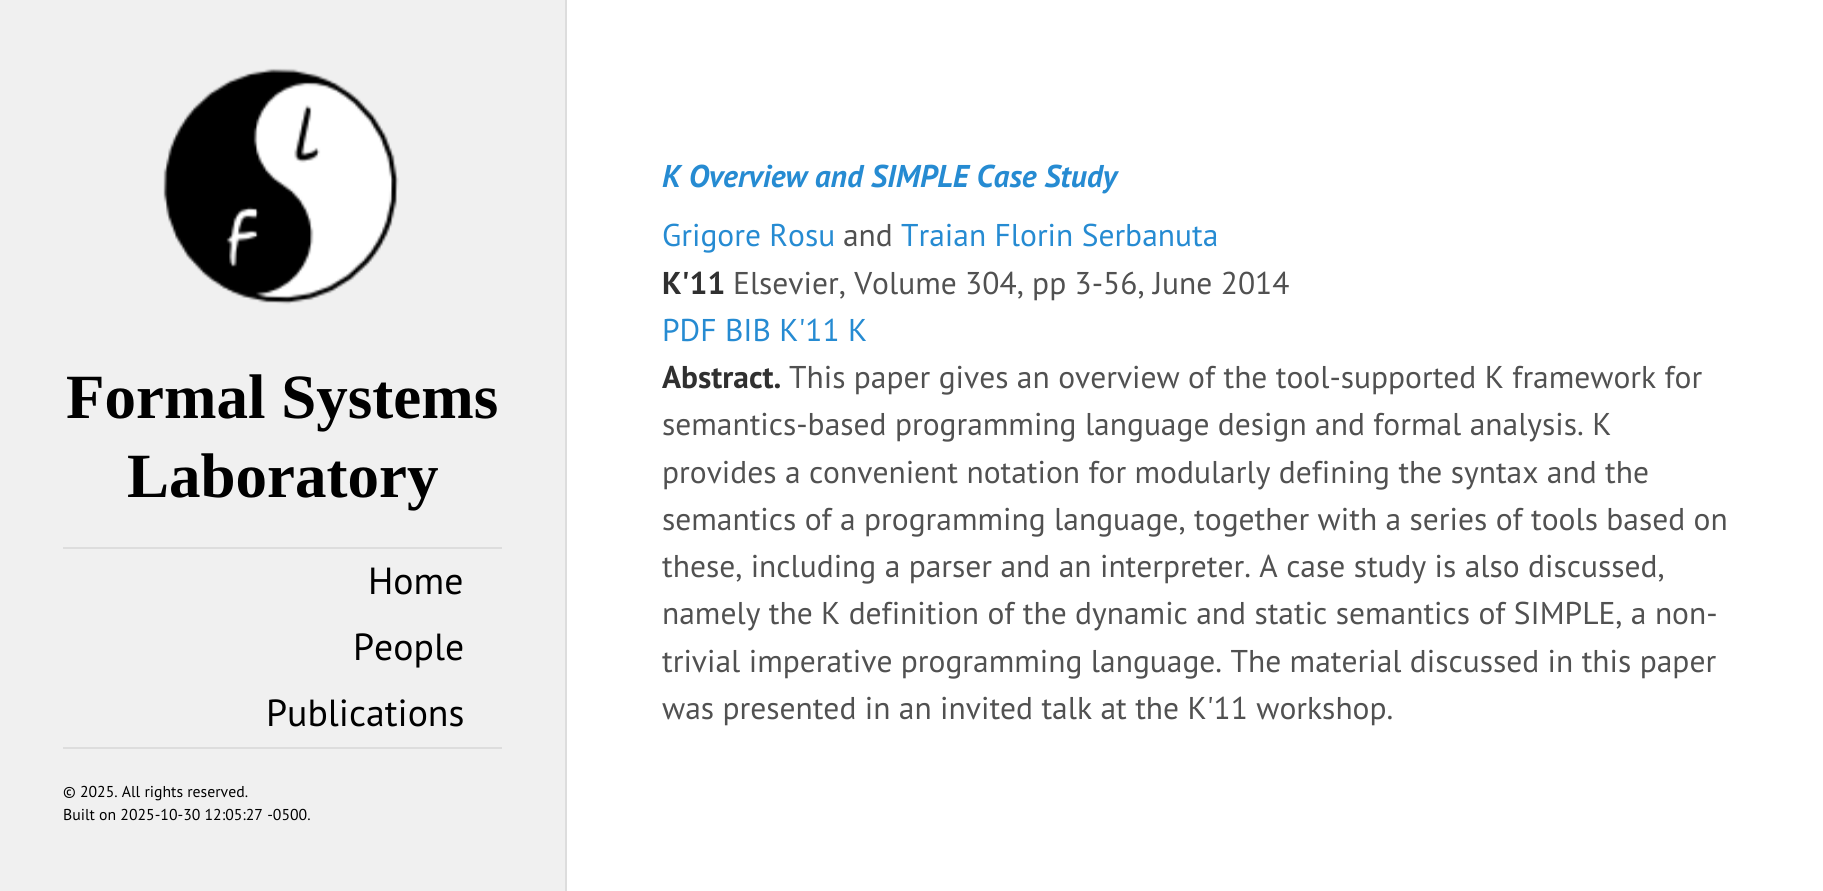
#include <cairo.h>
#include <math.h>
#include <stddef.h>

static cairo_t *ctx;

static void use_color(int r, int g, int b) {
    cairo_set_source_rgb(ctx, r / 255.0, g / 255.0, b / 255.0);
}

static void picture(const char *path, double x, double y, double w, double h) {
    cairo_surface_t *image = cairo_image_surface_create_from_png(path);
    cairo_save(ctx);
    cairo_set_source_surface(ctx, image, x, y);
    cairo_rectangle(ctx, x, y, w, h);
    cairo_fill(ctx);
    cairo_restore(ctx);
    cairo_surface_destroy(image);
}

int main(void) {
    cairo_surface_t *surface = cairo_image_surface_create(CAIRO_FORMAT_RGB24, 1823, 891);
    ctx = cairo_create(surface);
    cairo_font_options_t *options = cairo_font_options_create();
    cairo_font_options_set_hint_metrics(options, CAIRO_HINT_METRICS_OFF);
    cairo_font_options_set_hint_style(options, CAIRO_HINT_STYLE_NONE);
    cairo_set_font_options(ctx, options);
    cairo_set_miter_limit(ctx, 4);
    use_color(255, 255, 255);
    cairo_paint(ctx);
    use_color(240, 240, 240);
    cairo_rectangle(ctx, 0, 0, 565, 891);
    cairo_fill(ctx);
    use_color(221, 221, 221);
    cairo_rectangle(ctx, 565, 0, 2, 891);
    cairo_fill(ctx);
    picture("img1.png", 163, 68, 236, 237);
    cairo_select_font_face(ctx, "Liberation Serif", CAIRO_FONT_SLANT_NORMAL, CAIRO_FONT_WEIGHT_BOLD);
    cairo_set_font_size(ctx, 63);
    use_color(0, 0, 0);
    cairo_move_to(ctx, 66, 418);
    cairo_show_text(ctx, "Formal Systems");
    cairo_move_to(ctx, 127, 497);
    cairo_show_text(ctx, "Laboratory");
    use_color(221, 221, 221);
    cairo_rectangle(ctx, 63, 547, 439, 2);
    cairo_fill(ctx);
    cairo_rectangle(ctx, 63, 747, 439, 2);
    cairo_fill(ctx);
    cairo_select_font_face(ctx, "PT Sans", CAIRO_FONT_SLANT_NORMAL, CAIRO_FONT_WEIGHT_NORMAL);
    cairo_set_font_size(ctx, 37.75);
    use_color(0, 0, 0);
    cairo_move_to(ctx, 368, 594);
    cairo_show_text(ctx, "Home");
    cairo_move_to(ctx, 353, 660);
    cairo_show_text(ctx, "People");
    cairo_move_to(ctx, 266, 726);
    cairo_show_text(ctx, "Publications");
    cairo_set_font_size(ctx, 15.75);
    cairo_move_to(ctx, 63, 797);
    cairo_show_text(ctx, "© 2025. All rights reserved.");
    cairo_move_to(ctx, 63, 820);
    cairo_show_text(ctx, "Built on 2025-10-30 12:05:27 -0500.");
    cairo_select_font_face(ctx, "PT Sans", CAIRO_FONT_SLANT_ITALIC, CAIRO_FONT_WEIGHT_BOLD);
    cairo_set_font_size(ctx, 31.5);
    use_color(38, 139, 210);
    cairo_move_to(ctx, 662, 187);
    cairo_show_text(ctx, "K Overview and SIMPLE Case Study");
    cairo_select_font_face(ctx, "PT Sans", CAIRO_FONT_SLANT_NORMAL, CAIRO_FONT_WEIGHT_NORMAL);
    cairo_move_to(ctx, 662, 246);
    cairo_show_text(ctx, "Grigore Rosu");
    use_color(81, 81, 81);
    cairo_move_to(ctx, 843, 246);
    cairo_show_text(ctx, "and");
    use_color(38, 139, 210);
    cairo_move_to(ctx, 901, 246);
    cairo_show_text(ctx, "Traian Florin Serbanuta");
    cairo_select_font_face(ctx, "PT Sans", CAIRO_FONT_SLANT_NORMAL, CAIRO_FONT_WEIGHT_BOLD);
    use_color(48, 48, 48);
    cairo_move_to(ctx, 662, 294);
    cairo_show_text(ctx, "K'11");
    cairo_select_font_face(ctx, "PT Sans", CAIRO_FONT_SLANT_NORMAL, CAIRO_FONT_WEIGHT_NORMAL);
    use_color(81, 81, 81);
    cairo_move_to(ctx, 733, 294);
    cairo_show_text(ctx, "Elsevier, Volume 304, pp 3-56, June 2014");
    use_color(38, 139, 210);
    cairo_move_to(ctx, 662, 341);
    cairo_show_text(ctx, "PDF BIB K'11 K");
    cairo_select_font_face(ctx, "PT Sans", CAIRO_FONT_SLANT_NORMAL, CAIRO_FONT_WEIGHT_BOLD);
    use_color(48, 48, 48);
    cairo_move_to(ctx, 662, 388);
    cairo_show_text(ctx, "Abstract.");
    cairo_select_font_face(ctx, "PT Sans", CAIRO_FONT_SLANT_NORMAL, CAIRO_FONT_WEIGHT_NORMAL);
    use_color(81, 81, 81);
    cairo_move_to(ctx, 789, 388);
    cairo_show_text(ctx, "This paper gives an overview of the tool-supported K framework for");
    cairo_move_to(ctx, 662, 435);
    cairo_show_text(ctx, "semantics-based programming language design and formal analysis. K");
    cairo_move_to(ctx, 662, 483);
    cairo_show_text(ctx, "provides a convenient notation for modularly defining the syntax and the");
    cairo_move_to(ctx, 662, 530);
    cairo_show_text(ctx, "semantics of a programming language, together with a series of tools based on");
    cairo_move_to(ctx, 662, 577);
    cairo_show_text(ctx, "these, including a parser and an interpreter. A case study is also discussed,");
    cairo_move_to(ctx, 662, 624);
    cairo_show_text(ctx, "namely the K definition of the dynamic and static semantics of SIMPLE, a non-");
    cairo_move_to(ctx, 662, 672);
    cairo_show_text(ctx, "trivial imperative programming language. The material discussed in this paper");
    cairo_move_to(ctx, 662, 719);
    cairo_show_text(ctx, "was presented in an invited talk at the K'11 workshop.");
    cairo_surface_write_to_png(surface, "result.png");
    cairo_font_options_destroy(options);
    cairo_destroy(ctx);
    cairo_surface_destroy(surface);
    return 0;
}
